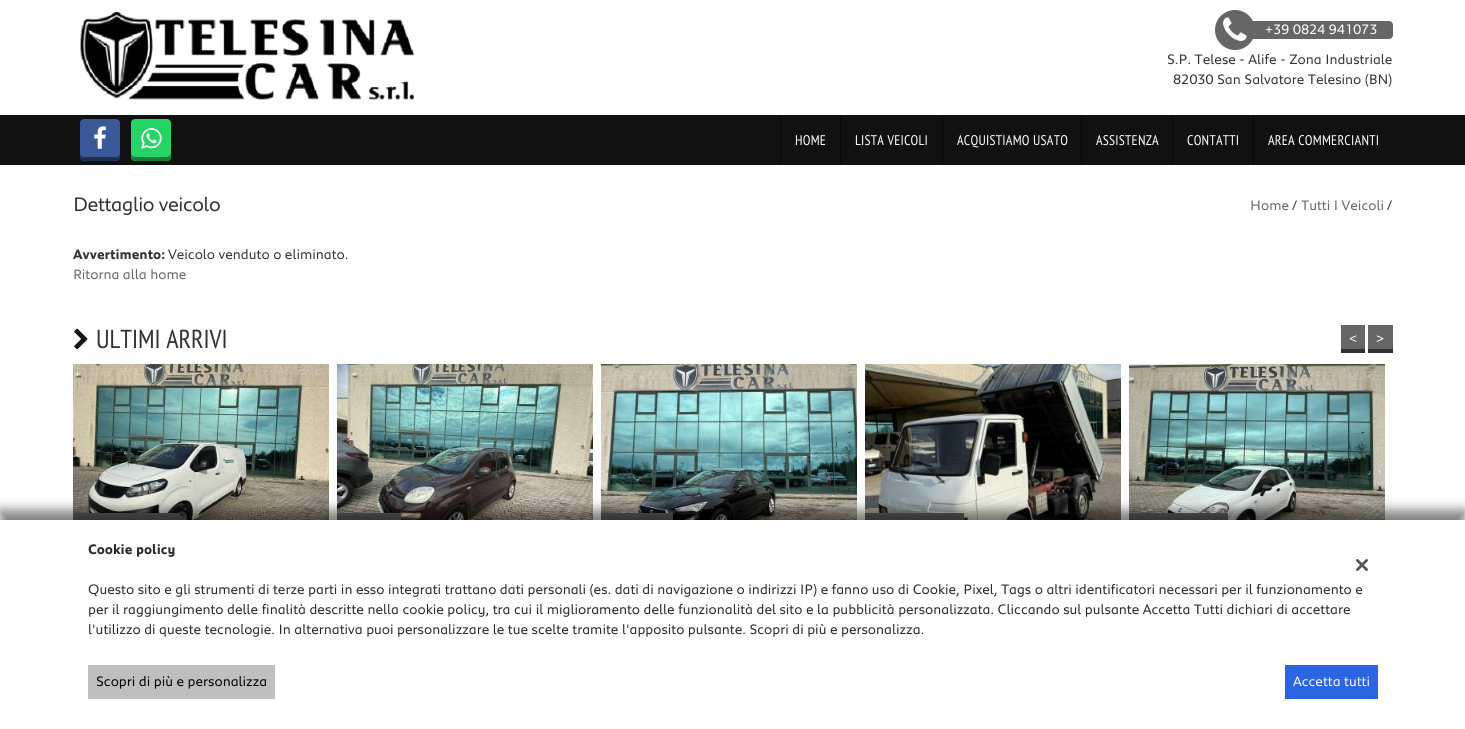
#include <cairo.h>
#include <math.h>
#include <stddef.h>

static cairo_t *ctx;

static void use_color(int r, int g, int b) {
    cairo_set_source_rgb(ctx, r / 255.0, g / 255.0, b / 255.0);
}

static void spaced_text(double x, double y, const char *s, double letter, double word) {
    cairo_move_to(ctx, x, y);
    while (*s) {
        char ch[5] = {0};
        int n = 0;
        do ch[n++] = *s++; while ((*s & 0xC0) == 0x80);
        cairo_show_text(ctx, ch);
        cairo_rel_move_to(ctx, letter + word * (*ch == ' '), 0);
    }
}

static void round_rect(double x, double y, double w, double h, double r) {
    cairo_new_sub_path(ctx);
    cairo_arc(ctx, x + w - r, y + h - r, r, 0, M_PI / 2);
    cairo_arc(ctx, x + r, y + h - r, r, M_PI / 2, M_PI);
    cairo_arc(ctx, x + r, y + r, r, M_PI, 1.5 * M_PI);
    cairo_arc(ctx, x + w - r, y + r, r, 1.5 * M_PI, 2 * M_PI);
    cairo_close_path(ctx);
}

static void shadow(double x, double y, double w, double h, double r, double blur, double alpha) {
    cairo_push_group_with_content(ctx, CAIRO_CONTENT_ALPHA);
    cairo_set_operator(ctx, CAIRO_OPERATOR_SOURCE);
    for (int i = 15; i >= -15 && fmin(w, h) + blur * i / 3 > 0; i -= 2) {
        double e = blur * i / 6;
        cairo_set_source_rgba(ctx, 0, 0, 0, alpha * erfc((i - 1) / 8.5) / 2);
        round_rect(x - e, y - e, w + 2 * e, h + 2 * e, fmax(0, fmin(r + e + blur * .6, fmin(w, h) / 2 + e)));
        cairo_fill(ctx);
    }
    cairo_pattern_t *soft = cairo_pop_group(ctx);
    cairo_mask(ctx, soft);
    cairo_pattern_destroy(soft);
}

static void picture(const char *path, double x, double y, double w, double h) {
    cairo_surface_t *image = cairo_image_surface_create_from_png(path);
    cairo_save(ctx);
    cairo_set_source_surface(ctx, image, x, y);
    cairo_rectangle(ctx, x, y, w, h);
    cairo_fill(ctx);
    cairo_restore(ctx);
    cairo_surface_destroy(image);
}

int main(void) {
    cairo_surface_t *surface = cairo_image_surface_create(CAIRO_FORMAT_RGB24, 1465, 729);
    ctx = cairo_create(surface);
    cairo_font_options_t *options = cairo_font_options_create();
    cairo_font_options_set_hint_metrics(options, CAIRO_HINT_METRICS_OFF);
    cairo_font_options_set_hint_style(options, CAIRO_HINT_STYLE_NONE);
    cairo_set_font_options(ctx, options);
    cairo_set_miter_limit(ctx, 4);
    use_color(255, 255, 255);
    cairo_paint(ctx);
    picture("img1.png", 80, 11, 334, 89);
    use_color(102, 102, 102);
    cairo_arc(ctx, 1235, 30, 20, 0, 2 * M_PI);
    cairo_fill(ctx);
    picture("img2.png", 1223, 17, 24, 24);
    round_rect(1250, 21, 143, 18, 4);
    cairo_fill(ctx);
    cairo_select_font_face(ctx, "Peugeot", CAIRO_FONT_SLANT_NORMAL, CAIRO_FONT_WEIGHT_NORMAL);
    cairo_set_font_size(ctx, 14);
    use_color(255, 255, 255);
    cairo_move_to(ctx, 1265, 34);
    cairo_show_text(ctx, "+39 0824 941073");
    use_color(51, 51, 51);
    cairo_move_to(ctx, 1167, 64);
    cairo_show_text(ctx, "S.P. Telese - Alife - Zona Industriale");
    cairo_move_to(ctx, 1173, 84);
    cairo_show_text(ctx, "82030 San Salvatore Telesino (BN)");
    use_color(17, 17, 17);
    cairo_rectangle(ctx, 0, 115, 1465, 50);
    cairo_fill(ctx);
    use_color(59, 89, 152);
    round_rect(80, 119, 40, 42, 4);
    cairo_fill(ctx);
    use_color(30, 46, 79);
    cairo_new_path(ctx);
    cairo_move_to(ctx, 80, 153);
    cairo_curve_to(ctx, 80, 161, 81, 161, 89, 161);
    cairo_line_to(ctx, 111, 161);
    cairo_curve_to(ctx, 119, 161, 120, 161, 120, 153);
    cairo_curve_to(ctx, 120, 155, 118, 157, 116, 157);
    cairo_line_to(ctx, 84, 157);
    cairo_curve_to(ctx, 82, 157, 80, 155, 80, 153);
    cairo_close_path(ctx);
    cairo_fill(ctx);
    picture("img3.png", 94, 126, 12, 23);
    use_color(37, 211, 102);
    round_rect(131, 119, 40, 42, 4);
    cairo_fill(ctx);
    use_color(22, 124, 60);
    cairo_new_path(ctx);
    cairo_move_to(ctx, 131, 153);
    cairo_curve_to(ctx, 131, 161, 132, 161, 140, 161);
    cairo_line_to(ctx, 162, 161);
    cairo_curve_to(ctx, 170, 161, 171, 161, 171, 153);
    cairo_curve_to(ctx, 171, 155, 169, 157, 167, 157);
    cairo_line_to(ctx, 135, 157);
    cairo_curve_to(ctx, 133, 157, 131, 155, 131, 153);
    cairo_close_path(ctx);
    cairo_fill(ctx);
    picture("img4.png", 141, 128, 21, 21);
    use_color(7, 7, 7);
    cairo_rectangle(ctx, 780, 115, 1, 50);
    cairo_fill(ctx);
    cairo_select_font_face(ctx, "PT Sans Narrow", CAIRO_FONT_SLANT_NORMAL, CAIRO_FONT_WEIGHT_NORMAL);
    use_color(255, 255, 255);
    spaced_text(795, 145, "HOME", 0.25, 0);
    use_color(7, 7, 7);
    cairo_rectangle(ctx, 840, 115, 1, 50);
    cairo_fill(ctx);
    use_color(255, 255, 255);
    spaced_text(855, 145, "LISTA VEICOLI", 0.25, 0);
    use_color(7, 7, 7);
    cairo_rectangle(ctx, 942, 115, 1, 50);
    cairo_fill(ctx);
    use_color(255, 255, 255);
    spaced_text(957, 145, "ACQUISTIAMO USATO", 0.25, 0);
    use_color(7, 7, 7);
    cairo_rectangle(ctx, 1081, 115, 1, 50);
    cairo_fill(ctx);
    use_color(255, 255, 255);
    spaced_text(1096, 145, "ASSISTENZA", 0.25, 0);
    use_color(7, 7, 7);
    cairo_rectangle(ctx, 1172, 115, 1, 50);
    cairo_fill(ctx);
    use_color(255, 255, 255);
    spaced_text(1187, 145, "CONTATTI", 0.25, 0);
    use_color(7, 7, 7);
    cairo_rectangle(ctx, 1253, 115, 1, 50);
    cairo_fill(ctx);
    use_color(255, 255, 255);
    spaced_text(1268, 145, "AREA COMMERCIANTI", 0.25, 0);
    cairo_select_font_face(ctx, "Peugeot", CAIRO_FONT_SLANT_NORMAL, CAIRO_FONT_WEIGHT_NORMAL);
    cairo_set_font_size(ctx, 20);
    use_color(51, 51, 51);
    spaced_text(73, 211, "Dettaglio veicolo", -0.4, 0);
    cairo_set_font_size(ctx, 14);
    use_color(102, 102, 102);
    cairo_move_to(ctx, 1250, 210);
    cairo_show_text(ctx, "Home");
    use_color(51, 51, 51);
    cairo_move_to(ctx, 1292, 210);
    cairo_show_text(ctx, "/");
    use_color(102, 102, 102);
    cairo_move_to(ctx, 1301, 210);
    cairo_show_text(ctx, "Tutti I Veicoli");
    use_color(51, 51, 51);
    cairo_move_to(ctx, 1387, 210);
    cairo_show_text(ctx, "/");
    cairo_select_font_face(ctx, "Peugeot", CAIRO_FONT_SLANT_NORMAL, CAIRO_FONT_WEIGHT_BOLD);
    cairo_move_to(ctx, 73, 259);
    cairo_show_text(ctx, "Avvertimento:");
    cairo_select_font_face(ctx, "Peugeot", CAIRO_FONT_SLANT_NORMAL, CAIRO_FONT_WEIGHT_NORMAL);
    cairo_move_to(ctx, 168, 259);
    cairo_show_text(ctx, "Veicolo venduto o eliminato.");
    use_color(102, 102, 102);
    cairo_move_to(ctx, 73, 279);
    cairo_show_text(ctx, "Ritorna alla home");
    picture("img5.png", 74, 328, 14, 22);
    cairo_select_font_face(ctx, "PT Sans Narrow", CAIRO_FONT_SLANT_NORMAL, CAIRO_FONT_WEIGHT_NORMAL);
    cairo_set_font_size(ctx, 26);
    use_color(51, 51, 51);
    cairo_move_to(ctx, 96, 348);
    cairo_show_text(ctx, "ULTIMI ARRIVI");
    use_color(102, 102, 102);
    cairo_rectangle(ctx, 1341, 325, 24, 24);
    cairo_fill(ctx);
    use_color(51, 51, 51);
    cairo_rectangle(ctx, 1341, 349, 24, 4);
    cairo_fill(ctx);
    cairo_select_font_face(ctx, "Peugeot", CAIRO_FONT_SLANT_NORMAL, CAIRO_FONT_WEIGHT_NORMAL);
    cairo_set_font_size(ctx, 14);
    use_color(255, 255, 255);
    cairo_move_to(ctx, 1349, 343);
    cairo_show_text(ctx, "<");
    use_color(102, 102, 102);
    cairo_rectangle(ctx, 1368, 325, 25, 24);
    cairo_fill(ctx);
    use_color(51, 51, 51);
    cairo_rectangle(ctx, 1368, 349, 25, 4);
    cairo_fill(ctx);
    use_color(255, 255, 255);
    cairo_move_to(ctx, 1376, 343);
    cairo_show_text(ctx, ">");
    picture("img6.png", 73, 364, 256, 156);
    use_color(102, 102, 102);
    cairo_rectangle(ctx, 73, 513, 107, 7);
    cairo_fill(ctx);
    picture("img7.png", 337, 364, 256, 156);
    cairo_rectangle(ctx, 337, 513, 64, 7);
    cairo_fill(ctx);
    picture("img8.png", 601, 364, 256, 156);
    cairo_rectangle(ctx, 601, 513, 72, 7);
    cairo_fill(ctx);
    picture("img9.png", 865, 364, 256, 156);
    cairo_rectangle(ctx, 865, 513, 99, 7);
    cairo_fill(ctx);
    picture("img10.png", 1129, 364, 256, 156);
    cairo_rectangle(ctx, 1129, 513, 99, 7);
    cairo_fill(ctx);
    use_color(0, 0, 0);
    shadow(0, 510, 1465, 209, 0, 6, 0.5);
    use_color(255, 255, 255);
    cairo_rectangle(ctx, 0, 520, 1465, 209);
    cairo_fill(ctx);
    cairo_select_font_face(ctx, "Peugeot", CAIRO_FONT_SLANT_NORMAL, CAIRO_FONT_WEIGHT_BOLD);
    use_color(43, 41, 41);
    cairo_move_to(ctx, 88, 554);
    cairo_show_text(ctx, "Cookie policy");
    cairo_select_font_face(ctx, "Peugeot", CAIRO_FONT_SLANT_NORMAL, CAIRO_FONT_WEIGHT_NORMAL);
    cairo_move_to(ctx, 88, 594);
    cairo_show_text(ctx, "Questo sito e gli strumenti di terze parti in esso integrati trattano dati personali (es. dati di navigazione o indirizzi IP) e fanno uso di Cookie, Pixel, Tags o altri identificatori necessari per il funzionamento e");
    cairo_move_to(ctx, 88, 614);
    cairo_show_text(ctx, "per il raggiungimento delle finalità descritte nella cookie policy, tra cui il miglioramento delle funzionalità del sito e la pubblicità personalizzata. Cliccando sul pulsante Accetta Tutti dichiari di accettare");
    cairo_move_to(ctx, 88, 634);
    cairo_show_text(ctx, "l'utilizzo di queste tecnologie. In alternativa puoi personalizzare le tue scelte tramite l'apposito pulsante. Scopri di più e personalizza.");
    use_color(191, 191, 191);
    cairo_rectangle(ctx, 88, 665, 187, 34);
    cairo_fill(ctx);
    use_color(0, 0, 0);
    cairo_move_to(ctx, 96, 686);
    cairo_show_text(ctx, "Scopri di più e personalizza");
    use_color(44, 101, 225);
    cairo_rectangle(ctx, 1285, 665, 93, 34);
    cairo_fill(ctx);
    use_color(255, 255, 255);
    cairo_move_to(ctx, 1293, 686);
    cairo_show_text(ctx, "Accetta tutti");
    picture("img11.png", 1356, 559, 12, 12);
    cairo_surface_write_to_png(surface, "result.png");
    cairo_font_options_destroy(options);
    cairo_destroy(ctx);
    cairo_surface_destroy(surface);
    return 0;
}
